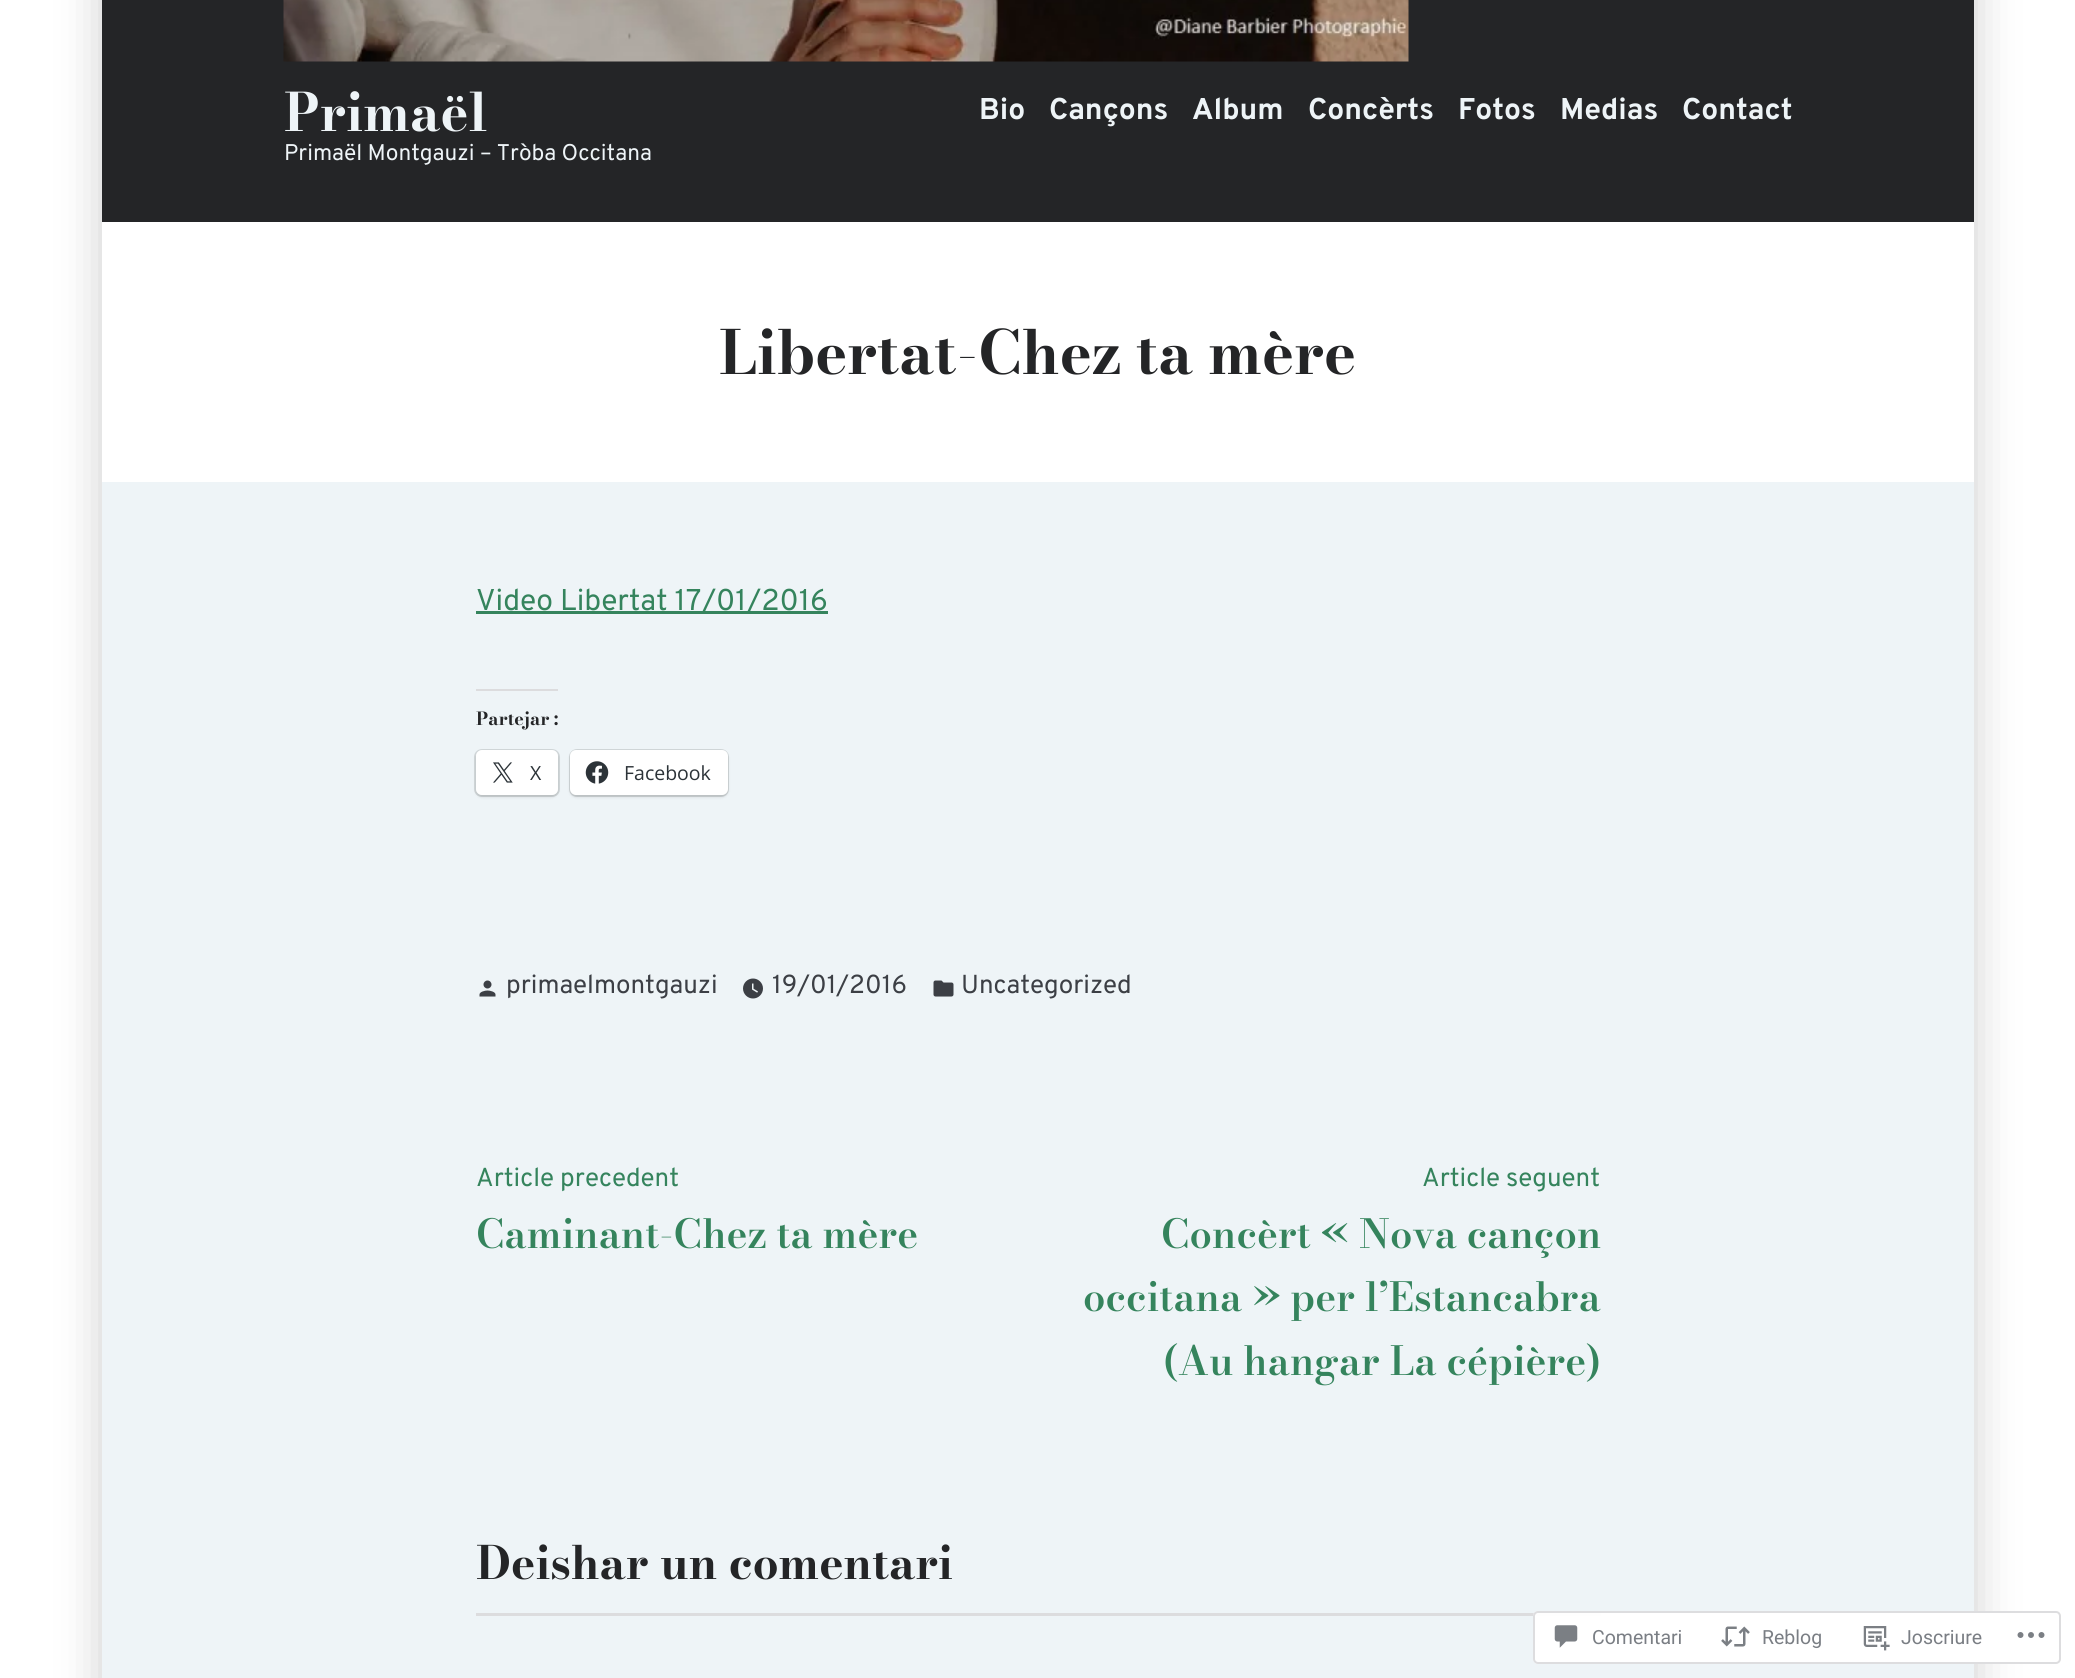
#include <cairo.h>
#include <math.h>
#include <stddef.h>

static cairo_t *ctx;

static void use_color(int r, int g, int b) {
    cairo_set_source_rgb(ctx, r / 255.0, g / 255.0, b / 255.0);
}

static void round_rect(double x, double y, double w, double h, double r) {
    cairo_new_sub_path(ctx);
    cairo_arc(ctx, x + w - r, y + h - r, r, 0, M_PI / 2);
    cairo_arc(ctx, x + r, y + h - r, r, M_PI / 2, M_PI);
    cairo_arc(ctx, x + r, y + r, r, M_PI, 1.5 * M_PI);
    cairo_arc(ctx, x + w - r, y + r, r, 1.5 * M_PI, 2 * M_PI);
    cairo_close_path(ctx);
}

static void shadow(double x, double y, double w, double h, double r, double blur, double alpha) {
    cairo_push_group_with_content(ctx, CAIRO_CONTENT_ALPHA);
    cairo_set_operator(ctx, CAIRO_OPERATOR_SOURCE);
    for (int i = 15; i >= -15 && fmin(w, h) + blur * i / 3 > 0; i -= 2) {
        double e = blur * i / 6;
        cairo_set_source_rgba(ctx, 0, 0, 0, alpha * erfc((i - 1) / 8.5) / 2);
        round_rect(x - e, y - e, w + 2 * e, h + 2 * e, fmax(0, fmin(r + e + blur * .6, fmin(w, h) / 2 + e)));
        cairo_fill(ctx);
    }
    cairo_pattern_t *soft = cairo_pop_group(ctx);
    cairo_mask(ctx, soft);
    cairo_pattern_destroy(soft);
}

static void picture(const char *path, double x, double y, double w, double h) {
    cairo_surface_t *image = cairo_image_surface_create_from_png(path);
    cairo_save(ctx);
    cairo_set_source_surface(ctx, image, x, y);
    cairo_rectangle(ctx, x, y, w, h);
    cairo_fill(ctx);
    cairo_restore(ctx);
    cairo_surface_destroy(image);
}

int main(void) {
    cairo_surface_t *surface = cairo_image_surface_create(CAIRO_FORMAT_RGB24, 2075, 1678);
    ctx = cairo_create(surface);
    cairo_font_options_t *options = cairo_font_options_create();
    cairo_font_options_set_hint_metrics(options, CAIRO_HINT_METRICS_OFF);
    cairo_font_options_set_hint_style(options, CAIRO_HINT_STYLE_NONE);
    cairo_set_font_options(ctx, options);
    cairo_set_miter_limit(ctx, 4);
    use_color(255, 255, 255);
    cairo_paint(ctx);
    use_color(0, 0, 0);
    shadow(102, -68, 1872, 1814, 0, 22.5, 0.2);
    use_color(238, 244, 247);
    cairo_rectangle(ctx, 102, 482, 1872, 1196);
    cairo_fill(ctx);
    use_color(36, 37, 39);
    cairo_rectangle(ctx, 102, 0, 1872, 222);
    cairo_fill(ctx);
    picture("img1.png", 283, 0, 1126, 62);
    cairo_select_font_face(ctx, "Bodoni Moda", CAIRO_FONT_SLANT_NORMAL, CAIRO_FONT_WEIGHT_BOLD);
    cairo_set_font_size(ctx, 52.5);
    use_color(238, 244, 247);
    cairo_move_to(ctx, 284, 131);
    cairo_show_text(ctx, "Primaël");
    cairo_select_font_face(ctx, "Overpass", CAIRO_FONT_SLANT_NORMAL, CAIRO_FONT_WEIGHT_BOLD);
    cairo_set_font_size(ctx, 30);
    cairo_move_to(ctx, 979, 119);
    cairo_show_text(ctx, "Bio");
    cairo_move_to(ctx, 1049, 119);
    cairo_show_text(ctx, "Cançons");
    cairo_move_to(ctx, 1192, 119);
    cairo_show_text(ctx, "Album");
    cairo_move_to(ctx, 1308, 119);
    cairo_show_text(ctx, "Concèrts");
    cairo_move_to(ctx, 1458, 119);
    cairo_show_text(ctx, "Fotos");
    cairo_move_to(ctx, 1560, 119);
    cairo_show_text(ctx, "Medias");
    cairo_move_to(ctx, 1682, 119);
    cairo_show_text(ctx, "Contact");
    cairo_select_font_face(ctx, "Overpass", CAIRO_FONT_SLANT_NORMAL, CAIRO_FONT_WEIGHT_NORMAL);
    cairo_set_font_size(ctx, 22.7);
    cairo_move_to(ctx, 284, 160);
    cairo_show_text(ctx, "Primaël Montgauzi – Tròba Occitana");
    use_color(255, 255, 255);
    cairo_rectangle(ctx, 102, 222, 1872, 260);
    cairo_fill(ctx);
    cairo_select_font_face(ctx, "Bodoni Moda", CAIRO_FONT_SLANT_NORMAL, CAIRO_FONT_WEIGHT_BOLD);
    cairo_set_font_size(ctx, 60.25);
    use_color(36, 37, 39);
    cairo_move_to(ctx, 719, 374);
    cairo_show_text(ctx, "Libertat-Chez ta mère");
    use_color(53, 132, 93);
    cairo_rectangle(ctx, 476, 611, 352, 3);
    cairo_fill(ctx);
    cairo_select_font_face(ctx, "Overpass", CAIRO_FONT_SLANT_NORMAL, CAIRO_FONT_WEIGHT_NORMAL);
    cairo_set_font_size(ctx, 30);
    cairo_move_to(ctx, 476, 610);
    cairo_show_text(ctx, "Video Libertat 17/01/2016");
    use_color(220, 220, 222);
    cairo_rectangle(ctx, 476, 689, 82, 2);
    cairo_fill(ctx);
    cairo_select_font_face(ctx, "Bodoni Moda", CAIRO_FONT_SLANT_NORMAL, CAIRO_FONT_WEIGHT_BOLD);
    cairo_set_font_size(ctx, 18);
    use_color(36, 37, 39);
    cairo_move_to(ctx, 476, 725);
    cairo_show_text(ctx, "Partejar :");
    round_rect(475, 750, 84, 46, 7);
    use_color(209, 215, 217);
    cairo_stroke(ctx);
    use_color(0, 0, 0);
    shadow(476, 752, 82, 45, 6, 1.5, 0.12);
    use_color(255, 255, 255);
    round_rect(476, 750, 82, 45, 6);
    cairo_fill(ctx);
    picture("img2.png", 493, 762, 20, 21);
    cairo_select_font_face(ctx, "Open Sans", CAIRO_FONT_SLANT_NORMAL, CAIRO_FONT_WEIGHT_NORMAL);
    cairo_set_font_size(ctx, 19.5);
    use_color(44, 51, 56);
    cairo_move_to(ctx, 530, 780);
    cairo_show_text(ctx, "X");
    round_rect(570, 750, 158, 46, 7);
    use_color(209, 215, 217);
    cairo_stroke(ctx);
    use_color(0, 0, 0);
    shadow(570, 752, 158, 45, 6, 1.5, 0.12);
    use_color(255, 255, 255);
    round_rect(570, 750, 158, 45, 6);
    cairo_fill(ctx);
    picture("img3.png", 585, 761, 24, 23);
    use_color(44, 51, 56);
    cairo_move_to(ctx, 624, 780);
    cairo_show_text(ctx, "Facebook");
    picture("img4.png", 479, 980, 17, 17);
    cairo_select_font_face(ctx, "Overpass", CAIRO_FONT_SLANT_NORMAL, CAIRO_FONT_WEIGHT_NORMAL);
    cairo_set_font_size(ctx, 26);
    use_color(60, 63, 69);
    cairo_move_to(ctx, 506, 993);
    cairo_show_text(ctx, "primaelmontgauzi");
    picture("img5.png", 743, 978, 20, 21);
    cairo_move_to(ctx, 772, 993);
    cairo_show_text(ctx, "19/01/2016");
    picture("img6.png", 933, 980, 21, 17);
    cairo_move_to(ctx, 961, 993);
    cairo_show_text(ctx, "Uncategorized");
    use_color(53, 132, 93);
    cairo_move_to(ctx, 476, 1186);
    cairo_show_text(ctx, "Article precedent");
    cairo_select_font_face(ctx, "Bodoni Moda SemiBold", CAIRO_FONT_SLANT_NORMAL, CAIRO_FONT_WEIGHT_NORMAL);
    cairo_set_font_size(ctx, 39.7);
    cairo_move_to(ctx, 476, 1248);
    cairo_show_text(ctx, "Caminant-Chez ta mère");
    cairo_select_font_face(ctx, "Overpass", CAIRO_FONT_SLANT_NORMAL, CAIRO_FONT_WEIGHT_NORMAL);
    cairo_set_font_size(ctx, 26);
    cairo_move_to(ctx, 1422, 1186);
    cairo_show_text(ctx, "Article seguent");
    cairo_select_font_face(ctx, "Bodoni Moda SemiBold", CAIRO_FONT_SLANT_NORMAL, CAIRO_FONT_WEIGHT_NORMAL);
    cairo_set_font_size(ctx, 39.7);
    cairo_move_to(ctx, 1161, 1248);
    cairo_show_text(ctx, "Concèrt « Nova cançon");
    cairo_move_to(ctx, 1083, 1311);
    cairo_show_text(ctx, "occitana » per l’Estancabra");
    cairo_move_to(ctx, 1163, 1375);
    cairo_show_text(ctx, "(Au hangar La cépière)");
    cairo_select_font_face(ctx, "Bodoni Moda", CAIRO_FONT_SLANT_NORMAL, CAIRO_FONT_WEIGHT_BOLD);
    cairo_set_font_size(ctx, 45.6);
    use_color(36, 37, 39);
    cairo_move_to(ctx, 476, 1579);
    cairo_show_text(ctx, "Deishar un comentari");
    use_color(220, 220, 222);
    cairo_rectangle(ctx, 476, 1613, 1125, 3);
    cairo_fill(ctx);
    cairo_set_source_rgba(ctx, 1, 1, 1, 0.98);
    round_rect(1533, 1611, 528, 53, 5);
    cairo_fill(ctx);
    round_rect(1534, 1612, 526, 51, 4);
    cairo_set_source_rgba(ctx, 0.863, 0.863, 0.871, 0.98);
    cairo_stroke(ctx);
    picture("img7.png", 1554, 1625, 24, 23);
    cairo_select_font_face(ctx, "Roboto", CAIRO_FONT_SLANT_NORMAL, CAIRO_FONT_WEIGHT_NORMAL);
    cairo_set_font_size(ctx, 19.5);
    use_color(122, 126, 132);
    cairo_move_to(ctx, 1592, 1644);
    cairo_show_text(ctx, "Comentari");
    picture("img8.png", 1721, 1626, 29, 21);
    cairo_move_to(ctx, 1762, 1644);
    cairo_show_text(ctx, "Reblog");
    picture("img9.png", 1863, 1626, 27, 25);
    cairo_move_to(ctx, 1901, 1644);
    cairo_show_text(ctx, "Joscriure");
    picture("img10.png", 2017, 1632, 28, 6);
    cairo_surface_write_to_png(surface, "result.png");
    cairo_font_options_destroy(options);
    cairo_destroy(ctx);
    cairo_surface_destroy(surface);
    return 0;
}
